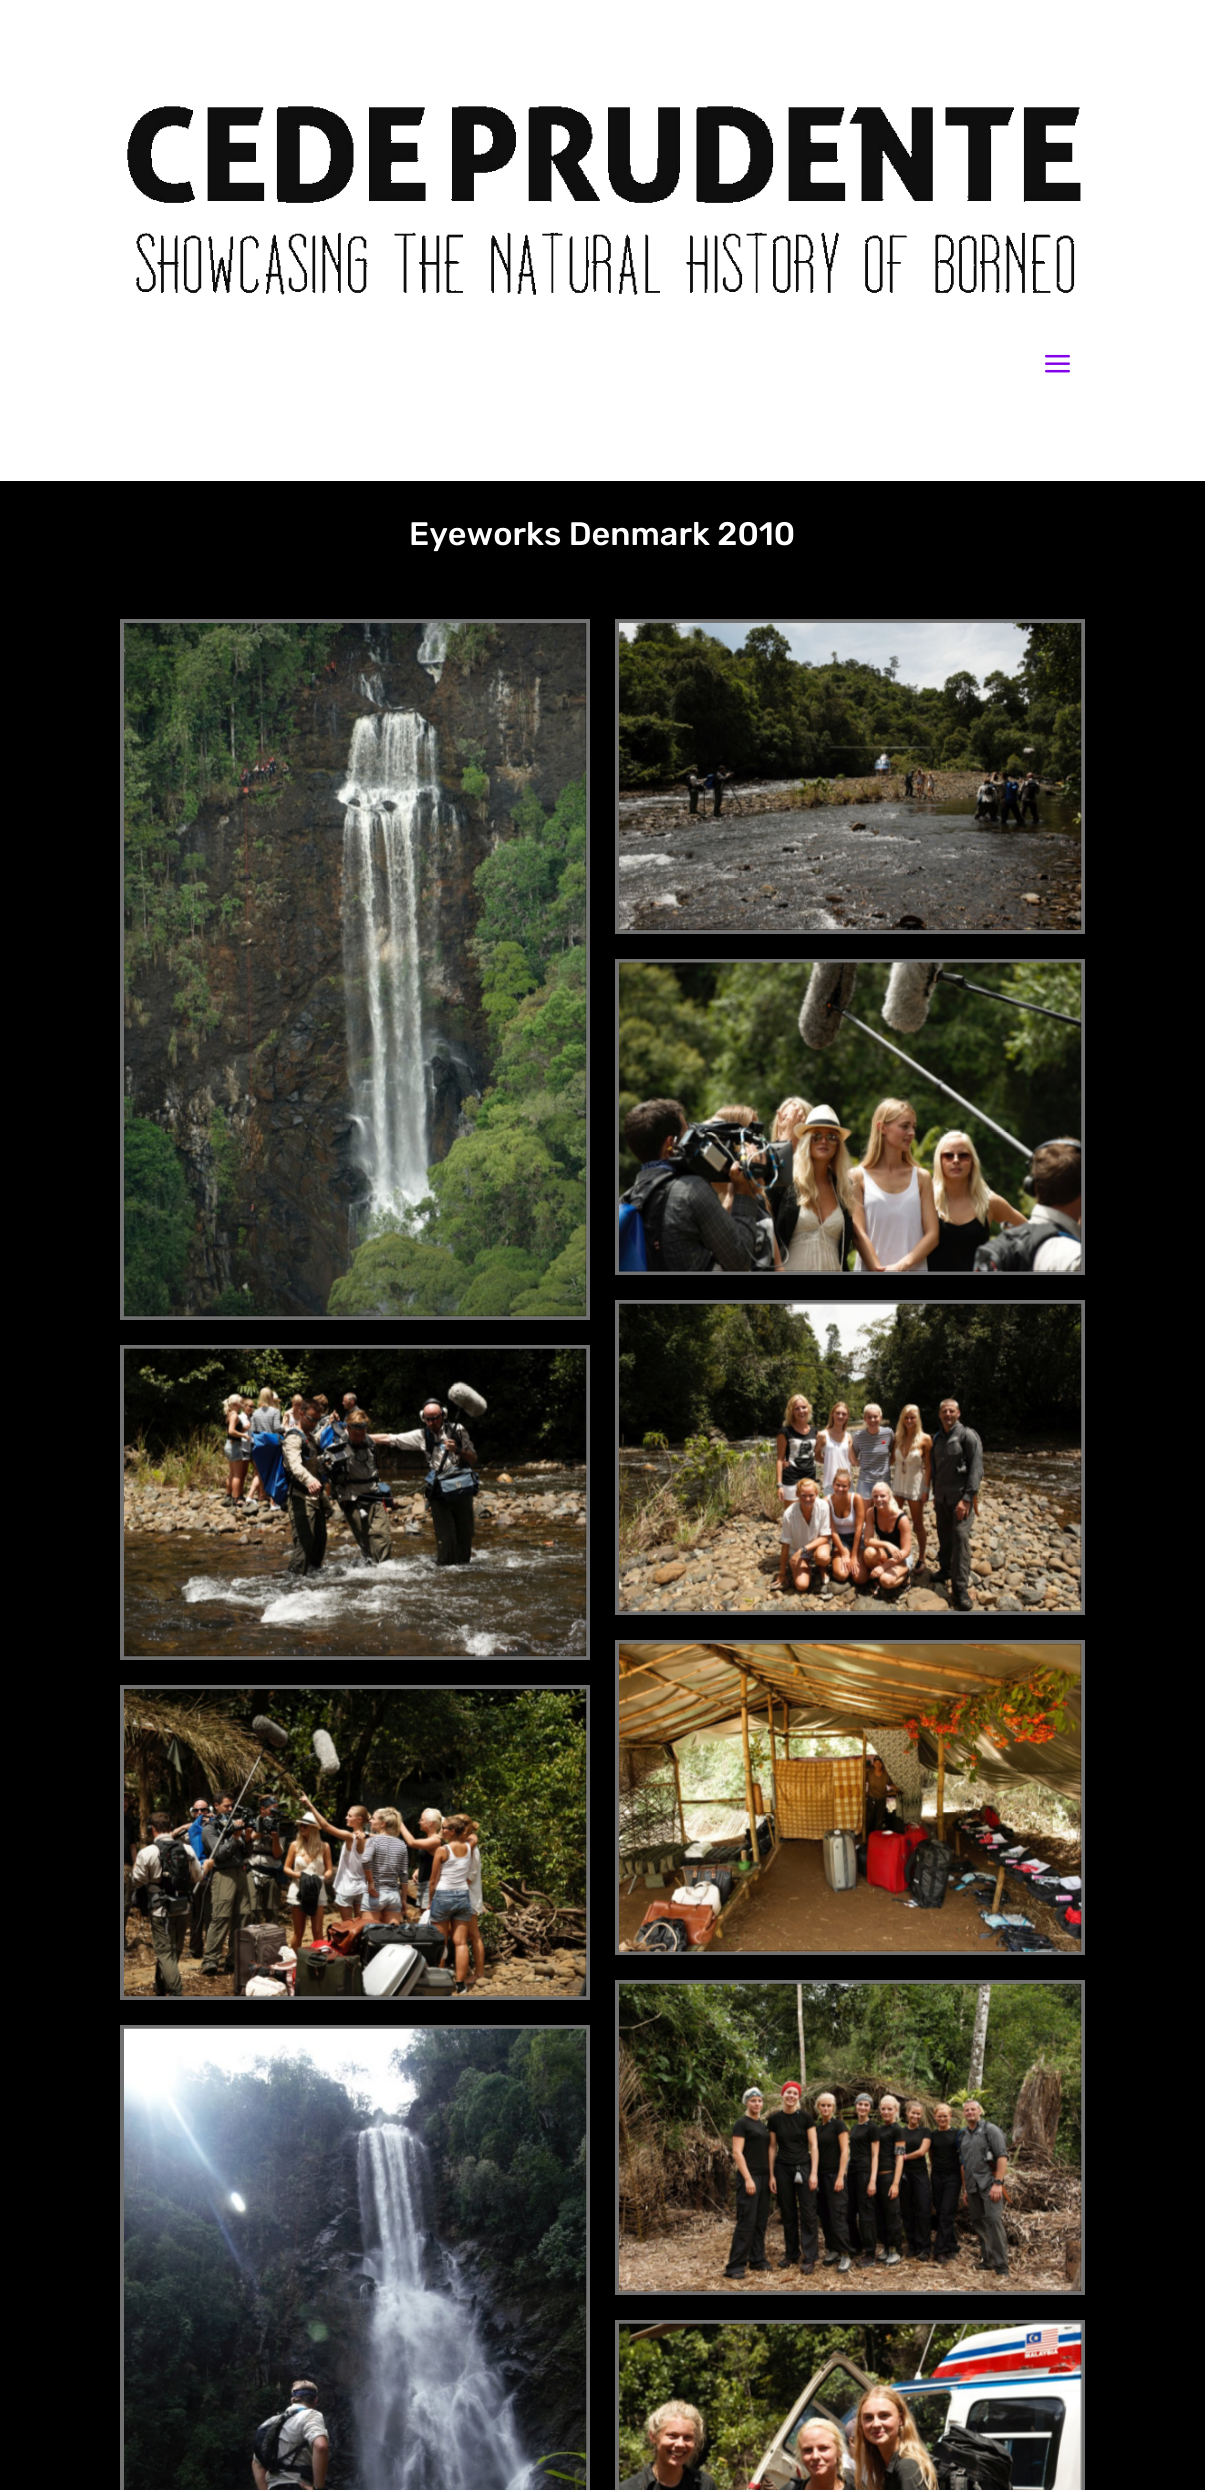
#include <cairo.h>
#include <math.h>
#include <stddef.h>

static cairo_t *ctx;

static void use_color(int r, int g, int b) {
    cairo_set_source_rgb(ctx, r / 255.0, g / 255.0, b / 255.0);
}

static void picture(const char *path, double x, double y, double w, double h) {
    cairo_surface_t *image = cairo_image_surface_create_from_png(path);
    cairo_save(ctx);
    cairo_set_source_surface(ctx, image, x, y);
    cairo_rectangle(ctx, x, y, w, h);
    cairo_fill(ctx);
    cairo_restore(ctx);
    cairo_surface_destroy(image);
}

int main(void) {
    cairo_surface_t *surface = cairo_image_surface_create(CAIRO_FORMAT_RGB24, 1205, 2490);
    ctx = cairo_create(surface);
    cairo_font_options_t *options = cairo_font_options_create();
    cairo_font_options_set_hint_metrics(options, CAIRO_HINT_METRICS_OFF);
    cairo_font_options_set_hint_style(options, CAIRO_HINT_STYLE_NONE);
    cairo_set_font_options(ctx, options);
    cairo_set_miter_limit(ctx, 4);
    use_color(255, 255, 255);
    cairo_paint(ctx);
    picture("img1.png", 127, 106, 954, 189);
    picture("img2.png", 1045, 354, 25, 19);
    use_color(0, 0, 0);
    cairo_rectangle(ctx, 0, 481, 1205, 2009);
    cairo_fill(ctx);
    cairo_select_font_face(ctx, "Rubik Light", CAIRO_FONT_SLANT_NORMAL, CAIRO_FONT_WEIGHT_NORMAL);
    cairo_set_font_size(ctx, 32.5);
    use_color(255, 255, 255);
    cairo_move_to(ctx, 409, 545);
    cairo_show_text(ctx, "Eyeworks Denmark 2010");
    cairo_rectangle(ctx, 122, 621, 466, 697);
    use_color(114, 114, 114);
    cairo_set_line_width(ctx, 4);
    cairo_stroke(ctx);
    picture("img3.png", 124, 623, 463, 694);
    cairo_rectangle(ctx, 122, 1347, 466, 311);
    cairo_stroke(ctx);
    picture("img4.png", 124, 1348, 463, 309);
    cairo_rectangle(ctx, 122, 1687, 466, 311);
    cairo_stroke(ctx);
    picture("img5.png", 124, 1689, 463, 308);
    cairo_rectangle(ctx, 122, 2027, 466, 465);
    cairo_stroke(ctx);
    picture("img6.png", 124, 2028, 463, 462);
    cairo_rectangle(ctx, 617, 621, 466, 311);
    cairo_stroke(ctx);
    picture("img7.png", 619, 623, 463, 308);
    cairo_rectangle(ctx, 617, 961, 466, 312);
    cairo_stroke(ctx);
    picture("img8.png", 619, 962, 463, 310);
    cairo_rectangle(ctx, 617, 1302, 466, 311);
    cairo_stroke(ctx);
    picture("img9.png", 619, 1303, 463, 309);
    cairo_rectangle(ctx, 617, 1642, 466, 311);
    cairo_stroke(ctx);
    picture("img10.png", 619, 1643, 463, 309);
    cairo_rectangle(ctx, 617, 1982, 466, 311);
    cairo_stroke(ctx);
    picture("img11.png", 619, 1983, 463, 309);
    cairo_rectangle(ctx, 617, 2322, 466, 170);
    cairo_stroke(ctx);
    picture("img12.png", 619, 2323, 463, 167);
    cairo_surface_write_to_png(surface, "result.png");
    cairo_font_options_destroy(options);
    cairo_destroy(ctx);
    cairo_surface_destroy(surface);
    return 0;
}
